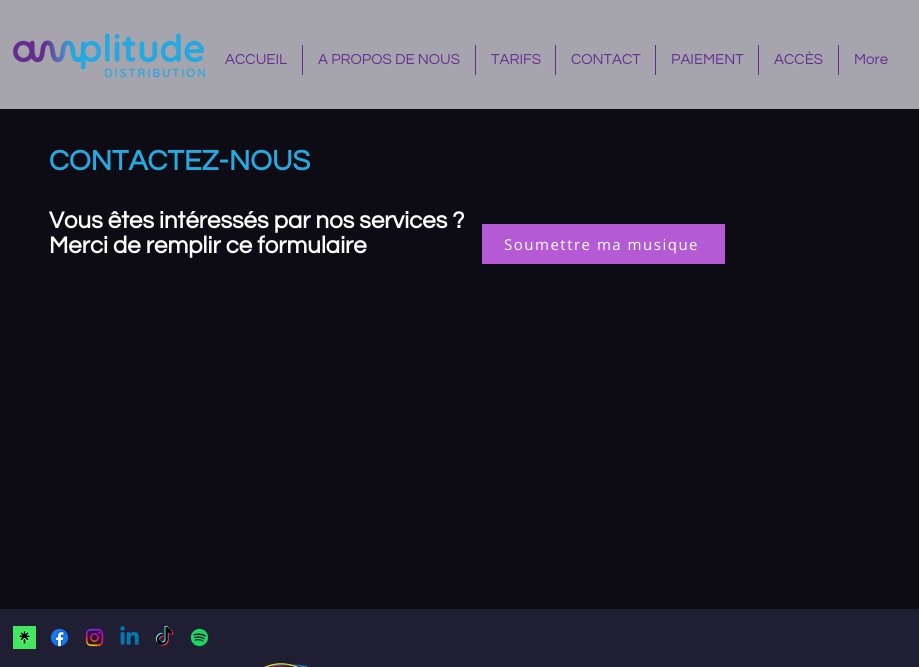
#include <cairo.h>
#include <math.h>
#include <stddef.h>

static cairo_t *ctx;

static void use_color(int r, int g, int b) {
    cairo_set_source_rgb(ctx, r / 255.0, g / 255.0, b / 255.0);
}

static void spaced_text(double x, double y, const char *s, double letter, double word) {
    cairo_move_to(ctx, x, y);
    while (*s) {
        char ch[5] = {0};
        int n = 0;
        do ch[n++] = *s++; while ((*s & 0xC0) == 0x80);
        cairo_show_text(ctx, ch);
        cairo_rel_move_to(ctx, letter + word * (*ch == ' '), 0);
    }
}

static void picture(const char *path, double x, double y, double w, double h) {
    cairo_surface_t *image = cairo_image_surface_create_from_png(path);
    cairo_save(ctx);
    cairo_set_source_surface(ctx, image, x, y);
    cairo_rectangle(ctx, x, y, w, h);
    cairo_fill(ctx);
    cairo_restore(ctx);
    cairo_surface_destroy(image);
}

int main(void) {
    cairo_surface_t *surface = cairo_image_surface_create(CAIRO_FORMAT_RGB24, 919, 667);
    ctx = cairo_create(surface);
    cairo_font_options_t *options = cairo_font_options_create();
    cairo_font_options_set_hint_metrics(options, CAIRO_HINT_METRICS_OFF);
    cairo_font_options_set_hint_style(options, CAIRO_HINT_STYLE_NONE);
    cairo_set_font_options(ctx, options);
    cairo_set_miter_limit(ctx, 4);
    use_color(32, 30, 51);
    cairo_paint(ctx);
    use_color(166, 165, 173);
    cairo_rectangle(ctx, 0, 0, 919, 109);
    cairo_fill(ctx);
    picture("img1.png", 13, 33, 192, 45);
    cairo_select_font_face(ctx, "Questrial", CAIRO_FONT_SLANT_NORMAL, CAIRO_FONT_WEIGHT_NORMAL);
    cairo_set_font_size(ctx, 15);
    use_color(102, 45, 145);
    cairo_move_to(ctx, 225, 64);
    cairo_show_text(ctx, "ACCUEIL");
    cairo_rectangle(ctx, 302, 45, 1, 30);
    cairo_fill(ctx);
    cairo_move_to(ctx, 318, 64);
    cairo_show_text(ctx, "A PROPOS DE NOUS");
    cairo_rectangle(ctx, 475, 45, 1, 30);
    cairo_fill(ctx);
    cairo_move_to(ctx, 491, 64);
    cairo_show_text(ctx, "TARIFS");
    cairo_rectangle(ctx, 555, 45, 1, 30);
    cairo_fill(ctx);
    cairo_move_to(ctx, 571, 64);
    cairo_show_text(ctx, "CONTACT");
    cairo_rectangle(ctx, 655, 45, 1, 30);
    cairo_fill(ctx);
    cairo_move_to(ctx, 671, 64);
    cairo_show_text(ctx, "PAIEMENT");
    cairo_rectangle(ctx, 758, 45, 1, 30);
    cairo_fill(ctx);
    cairo_move_to(ctx, 774, 64);
    cairo_show_text(ctx, "ACCÈS");
    cairo_rectangle(ctx, 838, 45, 1, 30);
    cairo_fill(ctx);
    cairo_move_to(ctx, 854, 64);
    cairo_show_text(ctx, "More");
    use_color(13, 12, 21);
    cairo_rectangle(ctx, 0, 109, 919, 500);
    cairo_fill(ctx);
    cairo_select_font_face(ctx, "Questrial", CAIRO_FONT_SLANT_NORMAL, CAIRO_FONT_WEIGHT_BOLD);
    cairo_set_font_size(ctx, 29);
    use_color(37, 170, 225);
    cairo_move_to(ctx, 49, 170);
    cairo_show_text(ctx, "CONTACTEZ-NOUS");
    cairo_set_font_size(ctx, 24);
    use_color(255, 255, 255);
    cairo_move_to(ctx, 49, 228);
    cairo_show_text(ctx, "Vous êtes intéressés par nos services ?");
    cairo_move_to(ctx, 49, 253);
    cairo_show_text(ctx, "Merci de remplir ce formulaire");
    use_color(180, 90, 212);
    cairo_rectangle(ctx, 482, 224, 243, 40);
    cairo_fill(ctx);
    cairo_select_font_face(ctx, "Open Sans", CAIRO_FONT_SLANT_NORMAL, CAIRO_FONT_WEIGHT_NORMAL);
    cairo_set_font_size(ctx, 15);
    use_color(255, 255, 255);
    spaced_text(504, 250, "Soumettre ma musique", 1.5, 0);
    picture("img2.png", 13, 626, 23, 23);
    picture("img3.png", 50, 628, 19, 19);
    picture("img4.png", 85, 628, 19, 19);
    picture("img5.png", 120, 626, 19, 19);
    picture("img6.png", 155, 626, 19, 20);
    picture("img7.png", 190, 628, 19, 19);
    picture("img8.png", 264, 663, 44, 4);
    cairo_surface_write_to_png(surface, "result.png");
    cairo_font_options_destroy(options);
    cairo_destroy(ctx);
    cairo_surface_destroy(surface);
    return 0;
}
